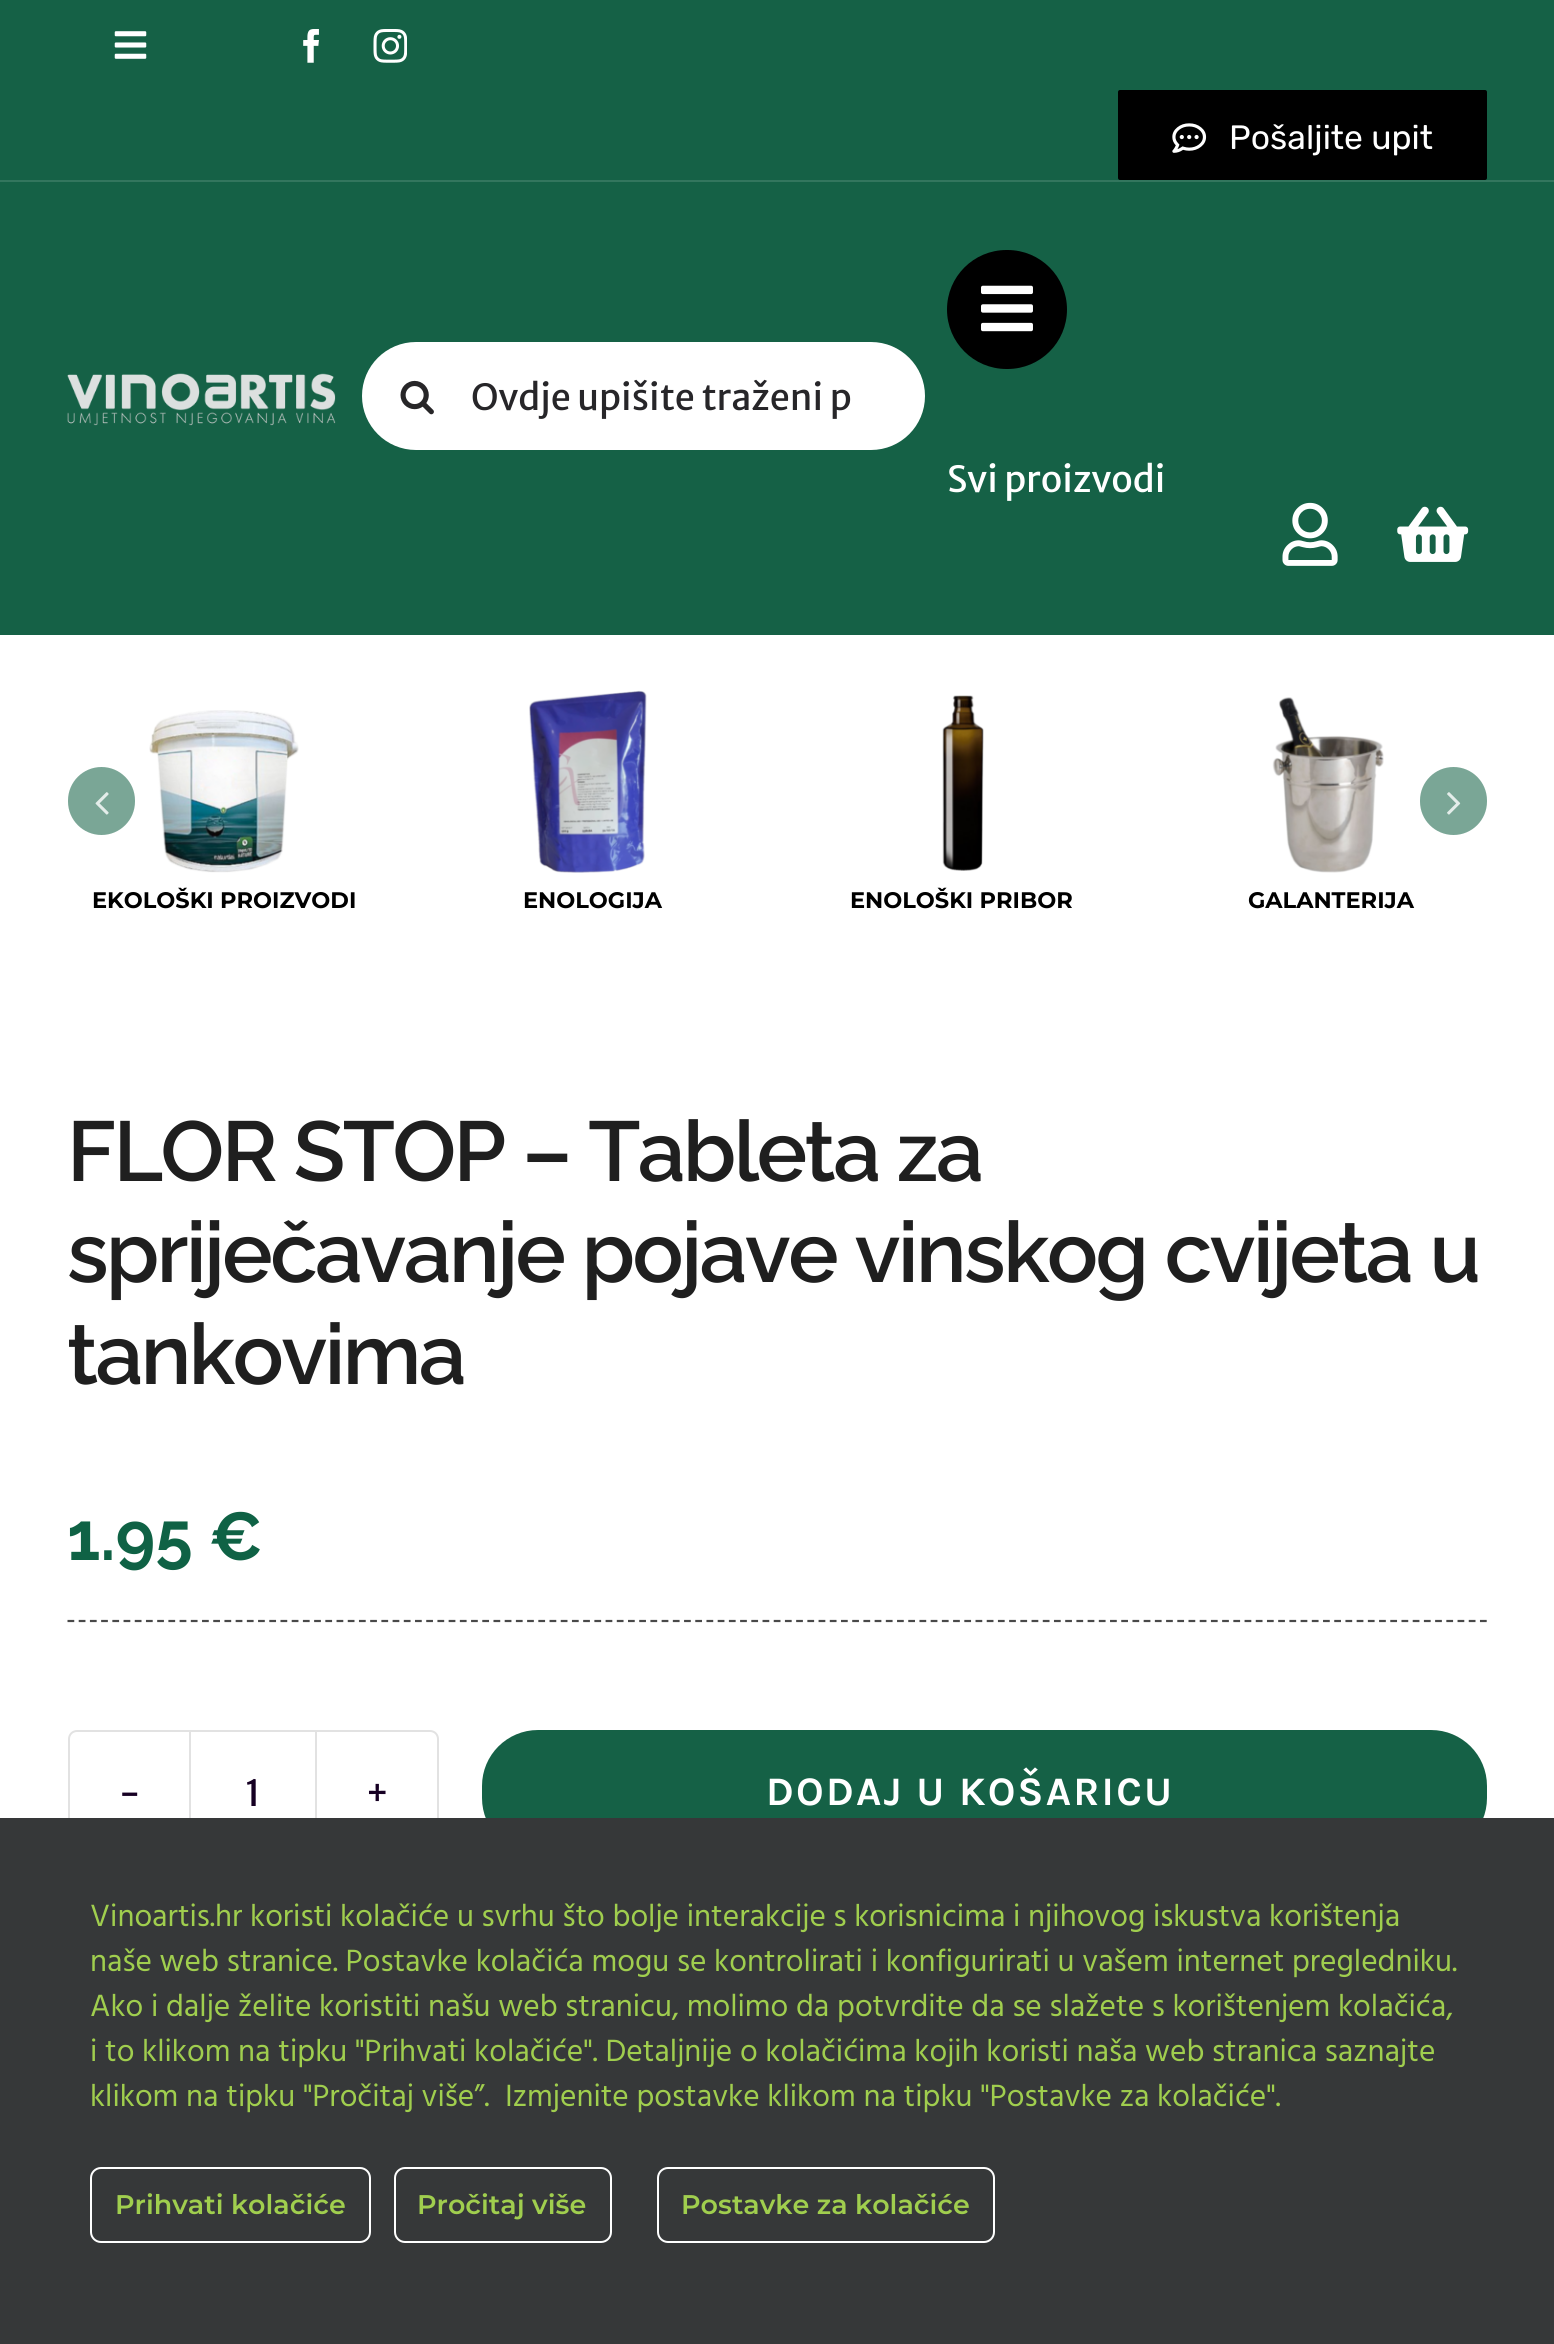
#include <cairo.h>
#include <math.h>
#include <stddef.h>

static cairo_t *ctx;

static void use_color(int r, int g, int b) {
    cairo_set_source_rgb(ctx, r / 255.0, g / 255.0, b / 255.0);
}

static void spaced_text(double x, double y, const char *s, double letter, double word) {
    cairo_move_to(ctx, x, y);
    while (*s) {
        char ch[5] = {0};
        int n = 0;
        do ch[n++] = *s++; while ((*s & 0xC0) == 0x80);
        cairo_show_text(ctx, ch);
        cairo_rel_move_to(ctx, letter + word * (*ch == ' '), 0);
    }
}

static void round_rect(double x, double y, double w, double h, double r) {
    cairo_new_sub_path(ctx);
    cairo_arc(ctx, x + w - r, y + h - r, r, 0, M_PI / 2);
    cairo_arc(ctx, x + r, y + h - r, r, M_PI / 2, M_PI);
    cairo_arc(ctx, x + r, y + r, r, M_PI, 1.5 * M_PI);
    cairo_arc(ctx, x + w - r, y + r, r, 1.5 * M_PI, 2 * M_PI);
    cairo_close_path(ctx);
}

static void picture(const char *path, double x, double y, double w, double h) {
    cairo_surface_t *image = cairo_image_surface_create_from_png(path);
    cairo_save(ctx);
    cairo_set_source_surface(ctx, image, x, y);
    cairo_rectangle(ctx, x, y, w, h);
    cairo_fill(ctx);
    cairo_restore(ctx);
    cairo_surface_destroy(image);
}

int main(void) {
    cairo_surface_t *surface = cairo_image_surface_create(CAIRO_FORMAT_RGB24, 1554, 2344);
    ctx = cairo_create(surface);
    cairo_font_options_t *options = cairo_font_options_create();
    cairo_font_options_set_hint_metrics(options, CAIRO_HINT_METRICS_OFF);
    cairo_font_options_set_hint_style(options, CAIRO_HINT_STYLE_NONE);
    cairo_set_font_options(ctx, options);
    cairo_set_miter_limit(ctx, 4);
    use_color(255, 255, 255);
    cairo_paint(ctx);
    use_color(21, 97, 70);
    cairo_rectangle(ctx, 0, 0, 1554, 180);
    cairo_fill(ctx);
    use_color(51, 118, 94);
    cairo_rectangle(ctx, 0, 180, 1554, 2);
    cairo_fill(ctx);
    picture("img1.png", 114, 31, 33, 28);
    picture("img2.png", 303, 29, 16, 34);
    picture("img3.png", 373, 29, 34, 34);
    use_color(0, 0, 0);
    round_rect(1118, 90, 369, 90, 2);
    cairo_fill(ctx);
    picture("img4.png", 1172, 123, 35, 30);
    cairo_select_font_face(ctx, "Rubik Light", CAIRO_FONT_SLANT_NORMAL, CAIRO_FONT_WEIGHT_NORMAL);
    cairo_set_font_size(ctx, 33.75);
    use_color(255, 255, 255);
    cairo_move_to(ctx, 1229, 149);
    cairo_show_text(ctx, "Pošaljite upit");
    use_color(21, 97, 70);
    cairo_rectangle(ctx, 0, 182, 1554, 453);
    cairo_fill(ctx);
    picture("img5.png", 67, 373, 269, 53);
    use_color(255, 255, 255);
    round_rect(362, 342, 563, 108, 54);
    cairo_fill(ctx);
    picture("img6.png", 400, 380, 34, 35);
    cairo_select_font_face(ctx, "Merriweather Sans", CAIRO_FONT_SLANT_NORMAL, CAIRO_FONT_WEIGHT_NORMAL);
    cairo_set_font_size(ctx, 36);
    use_color(39, 38, 41);
    cairo_move_to(ctx, 471, 410);
    cairo_show_text(ctx, "Ovdje upišite traženi p");
    use_color(0, 0, 0);
    round_rect(947, 250, 120, 119, 59.5);
    cairo_fill(ctx);
    picture("img7.png", 981, 285, 52, 47);
    use_color(255, 255, 255);
    cairo_move_to(ctx, 947, 492);
    cairo_show_text(ctx, "Svi proizvodi");
    picture("img8.png", 1282, 502, 56, 64);
    picture("img9.png", 1397, 506, 72, 56);
    use_color(122, 166, 150);
    round_rect(68, 767, 67, 68, 33.5);
    cairo_fill(ctx);
    picture("img10.png", 95, 792, 14, 23);
    round_rect(1420, 767, 67, 68, 33.5);
    cairo_fill(ctx);
    picture("img11.png", 1447, 792, 14, 23);
    picture("img12.png", 149, 710, 150, 163);
    cairo_select_font_face(ctx, "Montserrat Thin", CAIRO_FONT_SLANT_NORMAL, CAIRO_FONT_WEIGHT_NORMAL);
    cairo_set_font_size(ctx, 22.5);
    use_color(0, 0, 0);
    cairo_move_to(ctx, 92, 908);
    cairo_show_text(ctx, "EKOLOŠKI PROIZVODI");
    picture("img13.png", 529, 690, 118, 183);
    cairo_move_to(ctx, 523, 908);
    cairo_show_text(ctx, "ENOLOGIJA");
    picture("img14.png", 942, 695, 42, 176);
    cairo_move_to(ctx, 850, 908);
    cairo_show_text(ctx, "ENOLOŠKI PRIBOR");
    picture("img15.png", 1272, 697, 112, 176);
    cairo_move_to(ctx, 1248, 908);
    cairo_show_text(ctx, "GALANTERIJA");
    cairo_select_font_face(ctx, "Raleway SemiBold", CAIRO_FONT_SLANT_NORMAL, CAIRO_FONT_WEIGHT_NORMAL);
    cairo_set_font_size(ctx, 84.75);
    use_color(31, 31, 31);
    spaced_text(67, 1181, "FLOR STOP – Tableta za", -2.55, 0);
    spaced_text(67, 1282, "spriječavanje pojave vinskog cvijeta u", -2.55, 0);
    spaced_text(67, 1384, "tankovima", -2.55, 0);
    cairo_select_font_face(ctx, "Raleway", CAIRO_FONT_SLANT_NORMAL, CAIRO_FONT_WEIGHT_BOLD);
    cairo_set_font_size(ctx, 67.5);
    use_color(15, 98, 69);
    cairo_move_to(ctx, 67, 1560);
    cairo_show_text(ctx, "1.95 €");
    cairo_new_path(ctx);
    cairo_move_to(ctx, 67.5, 1621);
    cairo_line_to(ctx, 1487, 1621);
    use_color(73, 73, 73);
    cairo_set_line_width(ctx, 2.2);
    cairo_set_dash(ctx, (double[]){6.75, 4.46}, 2, 0);
    cairo_stroke(ctx);
    cairo_new_path(ctx);
    cairo_move_to(ctx, 77, 1731);
    cairo_line_to(ctx, 190, 1731);
    cairo_line_to(ctx, 190, 1853);
    cairo_line_to(ctx, 77, 1853);
    cairo_curve_to(ctx, 72.5, 1853, 69, 1849.5, 69, 1845);
    cairo_line_to(ctx, 69, 1739);
    cairo_curve_to(ctx, 69, 1734.5, 72.5, 1731, 77, 1731);
    cairo_close_path(ctx);
    use_color(226, 226, 226);
    cairo_set_line_width(ctx, 2);
    cairo_set_dash(ctx, NULL, 0, 0);
    cairo_stroke(ctx);
    cairo_select_font_face(ctx, "Merriweather Sans", CAIRO_FONT_SLANT_NORMAL, CAIRO_FONT_WEIGHT_NORMAL);
    cairo_set_font_size(ctx, 36);
    use_color(22, 0, 35);
    cairo_move_to(ctx, 119, 1806);
    cairo_show_text(ctx, "-");
    use_color(226, 226, 226);
    cairo_rectangle(ctx, 191, 1730, 124, 2);
    cairo_fill(ctx);
    use_color(22, 0, 35);
    cairo_move_to(ctx, 245, 1806);
    cairo_show_text(ctx, "1");
    cairo_new_path(ctx);
    cairo_move_to(ctx, 316, 1731);
    cairo_line_to(ctx, 430, 1731);
    cairo_curve_to(ctx, 434.5, 1731, 438, 1734.5, 438, 1739);
    cairo_line_to(ctx, 438, 1845);
    cairo_curve_to(ctx, 438, 1849.5, 434.5, 1853, 430, 1853);
    cairo_line_to(ctx, 316, 1853);
    cairo_close_path(ctx);
    use_color(226, 226, 226);
    cairo_stroke(ctx);
    use_color(22, 0, 35);
    cairo_move_to(ctx, 365, 1806);
    cairo_show_text(ctx, "+");
    use_color(21, 97, 70);
    round_rect(482, 1730, 1005, 124, 56);
    cairo_fill(ctx);
    cairo_select_font_face(ctx, "Karla", CAIRO_FONT_SLANT_NORMAL, CAIRO_FONT_WEIGHT_BOLD);
    cairo_set_font_size(ctx, 40.5);
    use_color(255, 255, 255);
    spaced_text(766, 1805, "DODAJ U KOŠARICU", 2.25, 0);
    use_color(54, 56, 57);
    cairo_rectangle(ctx, 0, 1818, 1554, 526);
    cairo_fill(ctx);
    cairo_select_font_face(ctx, "Hind", CAIRO_FONT_SLANT_NORMAL, CAIRO_FONT_WEIGHT_NORMAL);
    cairo_set_font_size(ctx, 31.5);
    use_color(160, 206, 78);
    cairo_move_to(ctx, 90, 1926);
    cairo_show_text(ctx, "Vinoartis.hr koristi kolačiće u svrhu što bolje interakcije s korisnicima i njihovog iskustva korištenja");
    cairo_move_to(ctx, 90, 1971);
    cairo_show_text(ctx, "naše web stranice. Postavke kolačića mogu se kontrolirati i konfigurirati u vašem internet pregledniku.");
    cairo_move_to(ctx, 90, 2016);
    cairo_show_text(ctx, "Ako i dalje želite koristiti našu web stranicu, molimo da potvrdite da se slažete s korištenjem kolačića,");
    cairo_move_to(ctx, 90, 2061);
    cairo_show_text(ctx, "i to klikom na tipku \"Prihvati kolačiće\". Detaljnije o kolačićima kojih koristi naša web stranica saznajte");
    cairo_move_to(ctx, 90, 2106);
    cairo_show_text(ctx, "klikom na tipku \"Pročitaj više”.  Izmjenite postavke klikom na tipku \"Postavke za kolačiće\".");
    round_rect(91, 2168, 279, 74, 10);
    use_color(255, 255, 255);
    cairo_stroke(ctx);
    cairo_select_font_face(ctx, "Montserrat SemiBold", CAIRO_FONT_SLANT_NORMAL, CAIRO_FONT_WEIGHT_NORMAL);
    cairo_set_font_size(ctx, 27);
    use_color(160, 206, 78);
    cairo_move_to(ctx, 115, 2214);
    cairo_show_text(ctx, "Prihvati kolačiće");
    round_rect(395, 2168, 216, 74, 10);
    use_color(255, 255, 255);
    cairo_stroke(ctx);
    use_color(160, 206, 78);
    cairo_move_to(ctx, 417, 2214);
    cairo_show_text(ctx, "Pročitaj više");
    round_rect(658, 2168, 336, 74, 10);
    use_color(255, 255, 255);
    cairo_stroke(ctx);
    use_color(160, 206, 78);
    cairo_move_to(ctx, 681, 2214);
    cairo_show_text(ctx, "Postavke za kolačiće");
    cairo_surface_write_to_png(surface, "result.png");
    cairo_font_options_destroy(options);
    cairo_destroy(ctx);
    cairo_surface_destroy(surface);
    return 0;
}
